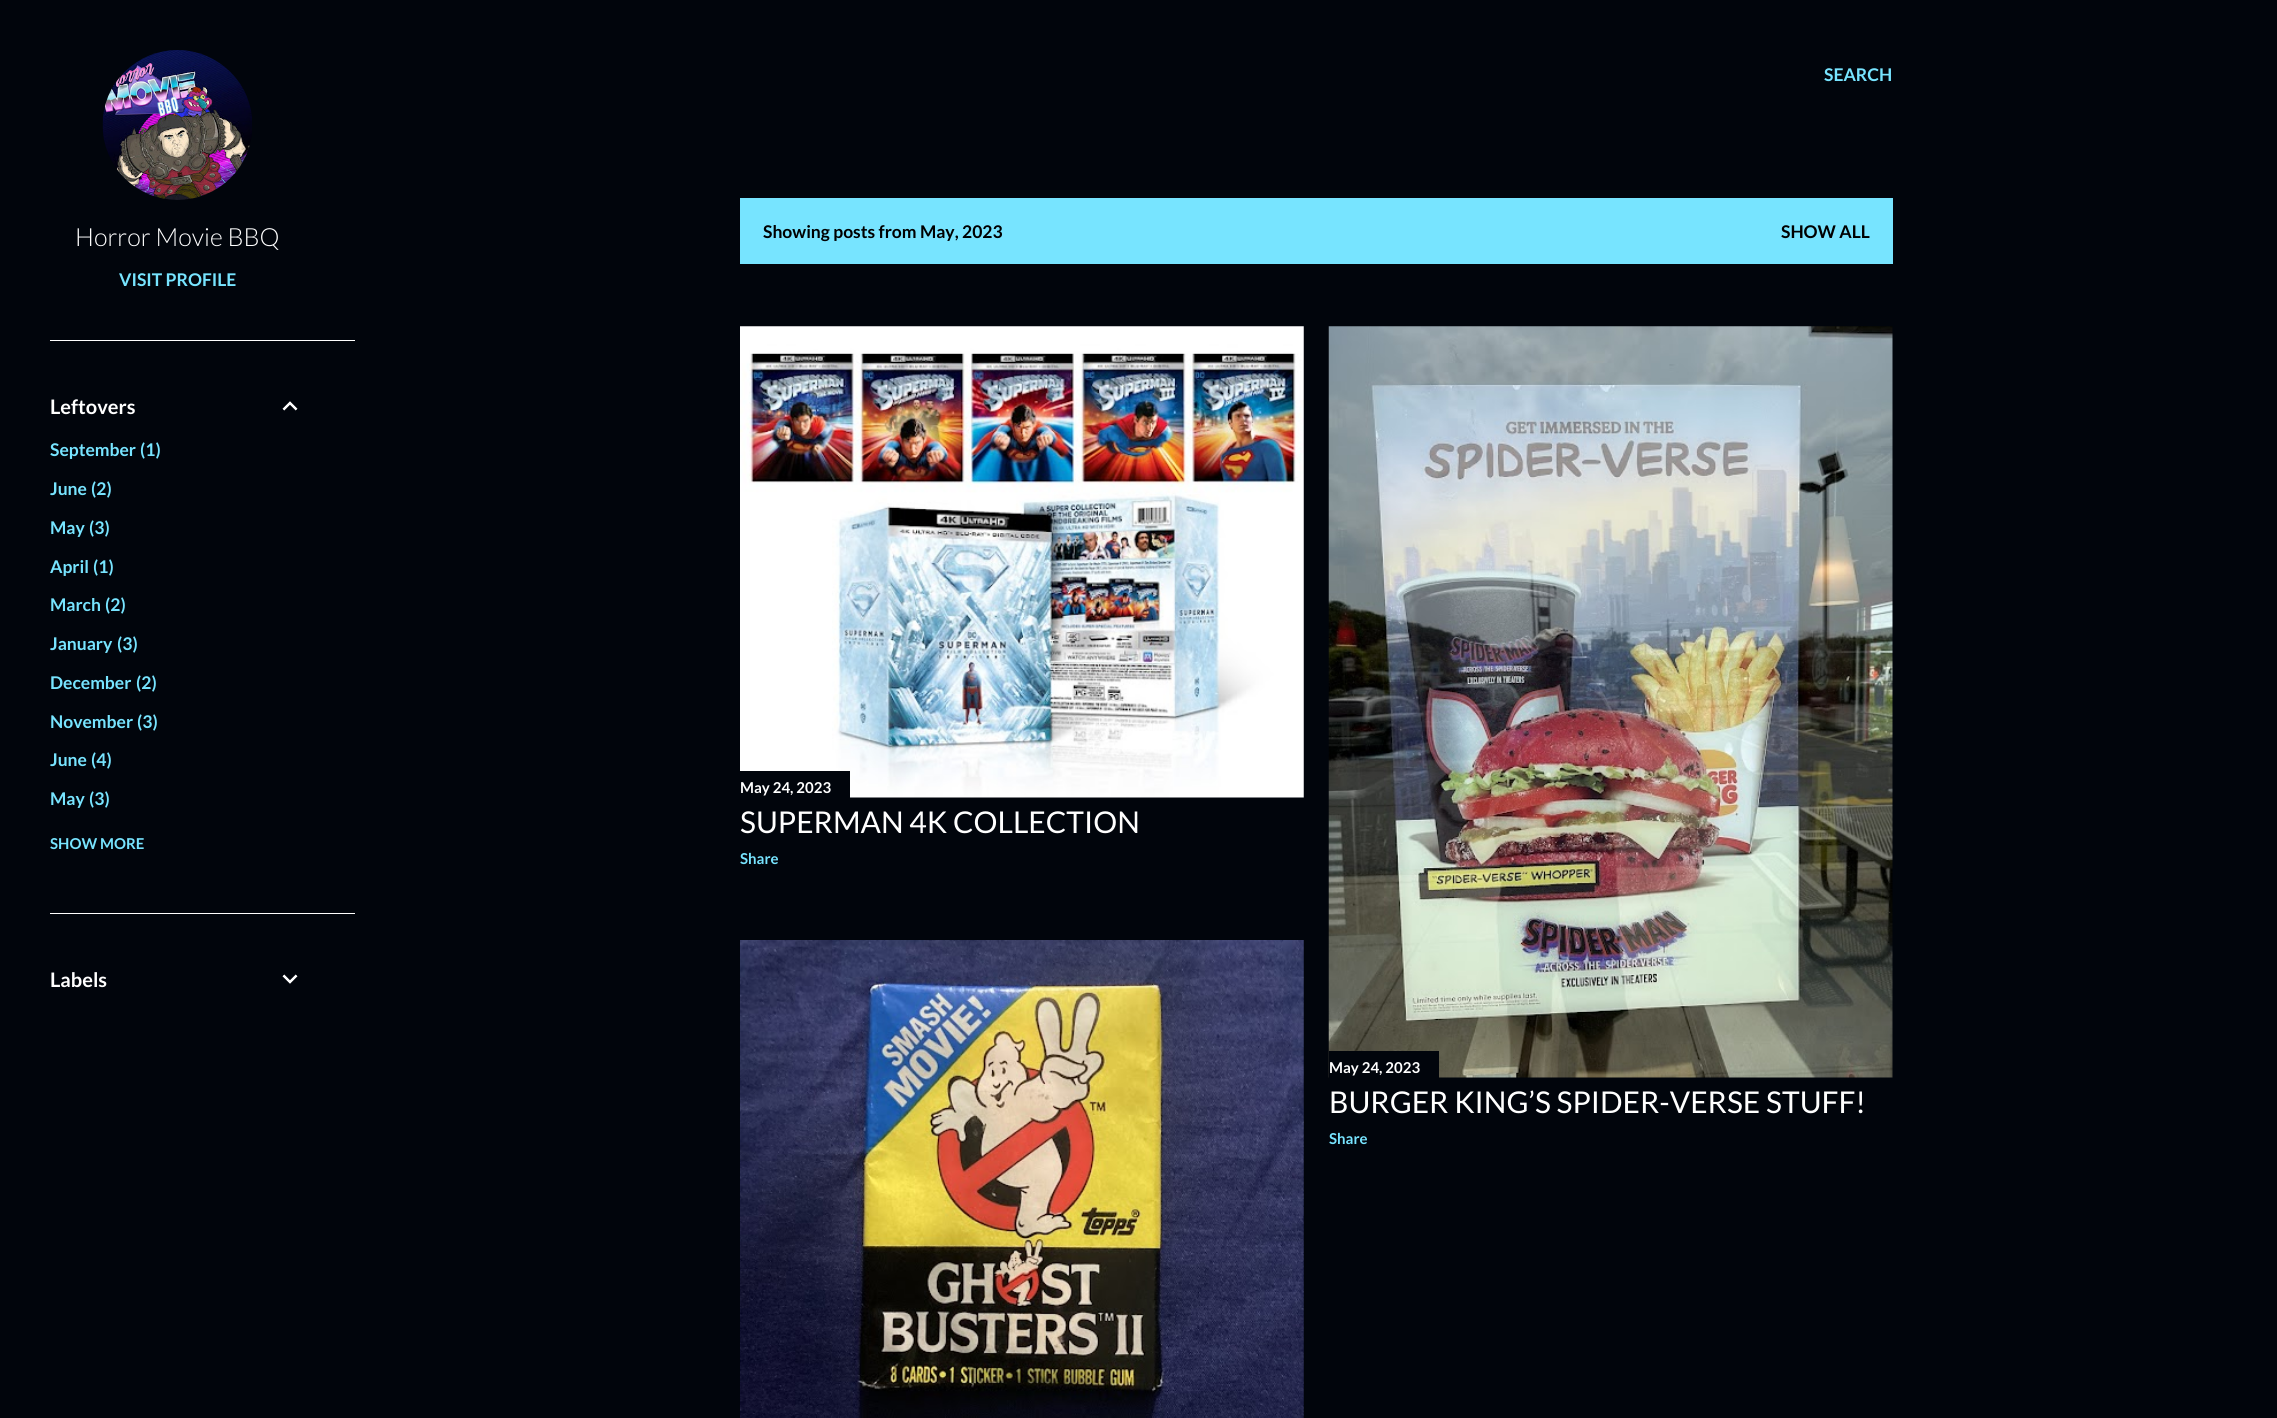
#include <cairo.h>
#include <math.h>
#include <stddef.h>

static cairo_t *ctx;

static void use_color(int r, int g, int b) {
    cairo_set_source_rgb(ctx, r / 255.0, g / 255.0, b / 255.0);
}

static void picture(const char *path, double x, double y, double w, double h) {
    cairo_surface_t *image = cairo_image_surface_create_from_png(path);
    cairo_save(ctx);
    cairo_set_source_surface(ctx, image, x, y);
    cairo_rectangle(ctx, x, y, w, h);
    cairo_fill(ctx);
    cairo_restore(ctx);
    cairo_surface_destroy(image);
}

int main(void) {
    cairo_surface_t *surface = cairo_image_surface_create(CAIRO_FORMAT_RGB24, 2277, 1418);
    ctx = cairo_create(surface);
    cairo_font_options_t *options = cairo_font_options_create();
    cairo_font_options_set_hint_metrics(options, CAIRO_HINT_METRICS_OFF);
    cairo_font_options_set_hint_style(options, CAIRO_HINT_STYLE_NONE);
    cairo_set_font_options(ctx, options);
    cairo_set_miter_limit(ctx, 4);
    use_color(1, 5, 12);
    cairo_paint(ctx);
    picture("img1.png", 102, 50, 150, 150);
    cairo_select_font_face(ctx, "Lato Light", CAIRO_FONT_SLANT_NORMAL, CAIRO_FONT_WEIGHT_NORMAL);
    cairo_set_font_size(ctx, 25);
    use_color(255, 255, 255);
    cairo_move_to(ctx, 75, 246);
    cairo_show_text(ctx, "Horror Movie BBQ");
    cairo_select_font_face(ctx, "Lato", CAIRO_FONT_SLANT_NORMAL, CAIRO_FONT_WEIGHT_BOLD);
    cairo_set_font_size(ctx, 17.5);
    use_color(119, 228, 255);
    cairo_move_to(ctx, 119, 286);
    cairo_show_text(ctx, "VISIT PROFILE");
    use_color(255, 255, 255);
    cairo_rectangle(ctx, 50, 340, 305, 1);
    cairo_fill(ctx);
    cairo_set_font_size(ctx, 20);
    cairo_move_to(ctx, 50, 414);
    cairo_show_text(ctx, "Leftovers");
    picture("img2.png", 282, 401, 16, 10);
    cairo_set_font_size(ctx, 17.5);
    use_color(119, 228, 255);
    cairo_move_to(ctx, 50, 456);
    cairo_show_text(ctx, "September");
    cairo_move_to(ctx, 140, 456);
    cairo_show_text(ctx, "(1)");
    cairo_move_to(ctx, 50, 495);
    cairo_show_text(ctx, "June");
    cairo_move_to(ctx, 91, 495);
    cairo_show_text(ctx, "(2)");
    cairo_move_to(ctx, 50, 534);
    cairo_show_text(ctx, "May");
    cairo_move_to(ctx, 89, 534);
    cairo_show_text(ctx, "(3)");
    cairo_move_to(ctx, 50, 573);
    cairo_show_text(ctx, "April");
    cairo_move_to(ctx, 93, 573);
    cairo_show_text(ctx, "(1)");
    cairo_move_to(ctx, 50, 611);
    cairo_show_text(ctx, "March");
    cairo_move_to(ctx, 105, 611);
    cairo_show_text(ctx, "(2)");
    cairo_move_to(ctx, 50, 650);
    cairo_show_text(ctx, "January");
    cairo_move_to(ctx, 117, 650);
    cairo_show_text(ctx, "(3)");
    cairo_move_to(ctx, 50, 689);
    cairo_show_text(ctx, "December");
    cairo_move_to(ctx, 136, 689);
    cairo_show_text(ctx, "(2)");
    cairo_move_to(ctx, 50, 728);
    cairo_show_text(ctx, "November");
    cairo_move_to(ctx, 137, 728);
    cairo_show_text(ctx, "(3)");
    cairo_move_to(ctx, 50, 766);
    cairo_show_text(ctx, "June");
    cairo_move_to(ctx, 91, 766);
    cairo_show_text(ctx, "(4)");
    cairo_move_to(ctx, 50, 805);
    cairo_show_text(ctx, "May");
    cairo_move_to(ctx, 89, 805);
    cairo_show_text(ctx, "(3)");
    cairo_set_font_size(ctx, 15);
    cairo_move_to(ctx, 50, 849);
    cairo_show_text(ctx, "SHOW MORE");
    use_color(255, 255, 255);
    cairo_rectangle(ctx, 50, 913, 305, 1);
    cairo_fill(ctx);
    cairo_set_font_size(ctx, 20);
    cairo_move_to(ctx, 50, 987);
    cairo_show_text(ctx, "Labels");
    picture("img3.png", 282, 974, 16, 10);
    cairo_set_font_size(ctx, 17.5);
    use_color(119, 228, 255);
    cairo_move_to(ctx, 1824, 81);
    cairo_show_text(ctx, "SEARCH");
    cairo_rectangle(ctx, 740, 198, 1153, 66);
    cairo_fill(ctx);
    use_color(0, 0, 0);
    cairo_move_to(ctx, 763, 238);
    cairo_show_text(ctx, "Showing posts from May, 2023");
    cairo_move_to(ctx, 1781, 238);
    cairo_show_text(ctx, "SHOW ALL");
    picture("img4.png", 740, 326, 564, 472);
    use_color(1, 5, 12);
    cairo_rectangle(ctx, 740, 771, 110, 27);
    cairo_fill(ctx);
    cairo_set_font_size(ctx, 15);
    use_color(255, 255, 255);
    cairo_move_to(ctx, 740, 793);
    cairo_show_text(ctx, "May 24, 2023");
    cairo_select_font_face(ctx, "Lato", CAIRO_FONT_SLANT_NORMAL, CAIRO_FONT_WEIGHT_NORMAL);
    cairo_set_font_size(ctx, 30);
    cairo_move_to(ctx, 740, 833);
    cairo_show_text(ctx, "SUPERMAN 4K COLLECTION");
    cairo_select_font_face(ctx, "Lato", CAIRO_FONT_SLANT_NORMAL, CAIRO_FONT_WEIGHT_BOLD);
    cairo_set_font_size(ctx, 15);
    use_color(119, 228, 255);
    cairo_move_to(ctx, 740, 864);
    cairo_show_text(ctx, "Share");
    picture("img5.png", 740, 940, 564, 478);
    picture("img6.png", 1328, 326, 565, 752);
    use_color(1, 5, 12);
    cairo_rectangle(ctx, 1329, 1051, 110, 27);
    cairo_fill(ctx);
    use_color(255, 255, 255);
    cairo_move_to(ctx, 1329, 1073);
    cairo_show_text(ctx, "May 24, 2023");
    cairo_select_font_face(ctx, "Lato", CAIRO_FONT_SLANT_NORMAL, CAIRO_FONT_WEIGHT_NORMAL);
    cairo_set_font_size(ctx, 30);
    cairo_move_to(ctx, 1329, 1113);
    cairo_show_text(ctx, "BURGER KING’S SPIDER-VERSE STUFF!");
    cairo_select_font_face(ctx, "Lato", CAIRO_FONT_SLANT_NORMAL, CAIRO_FONT_WEIGHT_BOLD);
    cairo_set_font_size(ctx, 15);
    use_color(119, 228, 255);
    cairo_move_to(ctx, 1329, 1144);
    cairo_show_text(ctx, "Share");
    cairo_surface_write_to_png(surface, "result.png");
    cairo_font_options_destroy(options);
    cairo_destroy(ctx);
    cairo_surface_destroy(surface);
    return 0;
}
